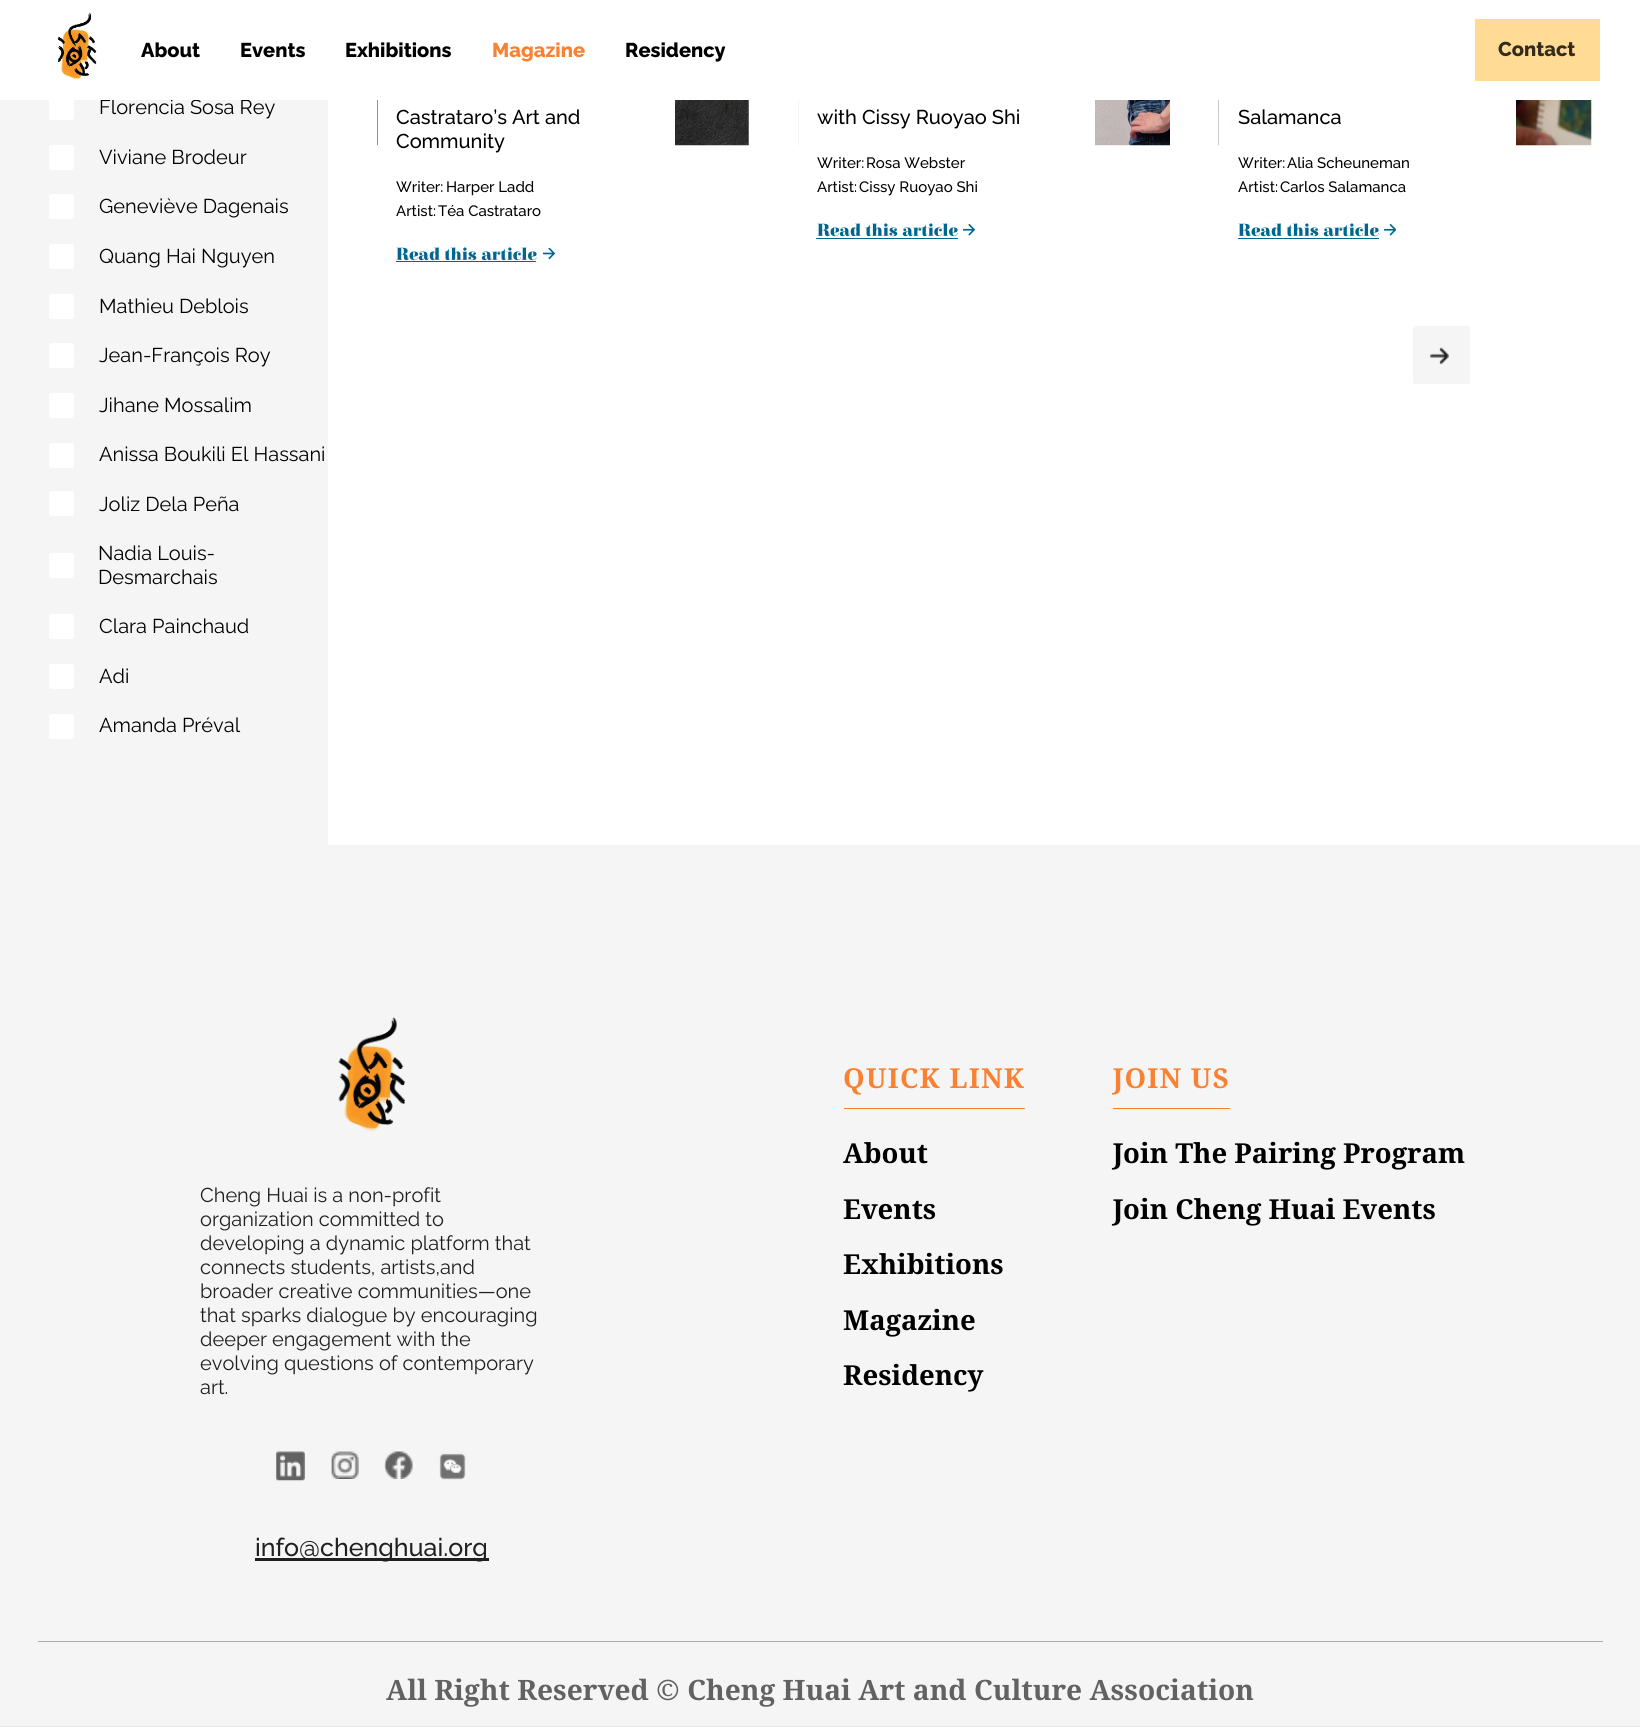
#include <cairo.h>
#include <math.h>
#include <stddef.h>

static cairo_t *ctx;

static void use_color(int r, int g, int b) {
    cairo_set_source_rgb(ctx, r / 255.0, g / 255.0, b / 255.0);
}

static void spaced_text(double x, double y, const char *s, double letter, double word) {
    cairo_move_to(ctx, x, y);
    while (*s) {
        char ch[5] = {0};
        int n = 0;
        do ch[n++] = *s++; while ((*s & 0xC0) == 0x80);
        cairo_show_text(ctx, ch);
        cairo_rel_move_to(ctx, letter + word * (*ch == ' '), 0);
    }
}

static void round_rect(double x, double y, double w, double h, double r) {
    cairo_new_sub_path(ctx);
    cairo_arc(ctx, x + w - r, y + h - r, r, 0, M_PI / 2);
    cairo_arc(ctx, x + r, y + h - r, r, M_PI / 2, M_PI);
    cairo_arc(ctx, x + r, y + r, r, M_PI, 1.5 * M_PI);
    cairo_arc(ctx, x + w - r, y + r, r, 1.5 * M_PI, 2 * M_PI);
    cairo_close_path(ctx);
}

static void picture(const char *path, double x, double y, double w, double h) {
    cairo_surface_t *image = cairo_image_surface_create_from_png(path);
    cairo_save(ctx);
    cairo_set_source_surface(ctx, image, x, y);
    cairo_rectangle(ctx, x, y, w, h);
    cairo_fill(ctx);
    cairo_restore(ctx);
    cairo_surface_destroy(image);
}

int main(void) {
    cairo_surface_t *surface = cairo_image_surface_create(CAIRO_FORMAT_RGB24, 1640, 1727);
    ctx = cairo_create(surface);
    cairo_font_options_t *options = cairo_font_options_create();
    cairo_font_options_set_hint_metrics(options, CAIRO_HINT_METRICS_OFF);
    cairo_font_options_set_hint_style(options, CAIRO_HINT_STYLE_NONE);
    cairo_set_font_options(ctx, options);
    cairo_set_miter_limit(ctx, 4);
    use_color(255, 255, 255);
    cairo_paint(ctx);
    use_color(245, 245, 245);
    cairo_rectangle(ctx, 0, 100, 328, 745);
    cairo_fill(ctx);
    cairo_select_font_face(ctx, "Raleway", CAIRO_FONT_SLANT_NORMAL, CAIRO_FONT_WEIGHT_NORMAL);
    cairo_set_font_size(ctx, 20);
    use_color(0, 0, 0);
    cairo_move_to(ctx, 99, 114);
    cairo_show_text(ctx, "Florencia Sosa Rey");
    use_color(255, 255, 255);
    cairo_rectangle(ctx, 101, 99, 148, 1);
    cairo_fill(ctx);
    picture("img1.png", 57, 12, 40, 68);
    cairo_select_font_face(ctx, "Raleway ExtraBold", CAIRO_FONT_SLANT_NORMAL, CAIRO_FONT_WEIGHT_NORMAL);
    use_color(0, 0, 0);
    cairo_move_to(ctx, 141, 57);
    cairo_show_text(ctx, "About");
    cairo_move_to(ctx, 240, 57);
    cairo_show_text(ctx, "Events");
    cairo_move_to(ctx, 345, 57);
    cairo_show_text(ctx, "Exhibitions");
    use_color(250, 129, 49);
    cairo_move_to(ctx, 492, 57);
    cairo_show_text(ctx, "Magazine");
    use_color(0, 0, 0);
    cairo_move_to(ctx, 625, 57);
    cairo_show_text(ctx, "Residency");
    use_color(255, 219, 149);
    cairo_rectangle(ctx, 1475, 19, 125, 62);
    cairo_fill(ctx);
    use_color(51, 44, 30);
    cairo_move_to(ctx, 1498, 56);
    cairo_show_text(ctx, "Contact");
    use_color(255, 255, 255);
    round_rect(49, 95, 25, 25, 2.5);
    cairo_fill(ctx);
    round_rect(49, 145, 25, 25, 2.5);
    cairo_fill(ctx);
    cairo_select_font_face(ctx, "Raleway", CAIRO_FONT_SLANT_NORMAL, CAIRO_FONT_WEIGHT_NORMAL);
    use_color(0, 0, 0);
    cairo_move_to(ctx, 99, 164);
    cairo_show_text(ctx, "Viviane Brodeur");
    use_color(255, 255, 255);
    round_rect(49, 194, 25, 25, 2.5);
    cairo_fill(ctx);
    use_color(0, 0, 0);
    cairo_move_to(ctx, 99, 213);
    cairo_show_text(ctx, "Geneviève Dagenais");
    use_color(255, 255, 255);
    round_rect(49, 244, 25, 25, 2.5);
    cairo_fill(ctx);
    use_color(0, 0, 0);
    cairo_move_to(ctx, 99, 263);
    cairo_show_text(ctx, "Quang Hai Nguyen");
    use_color(255, 255, 255);
    round_rect(49, 294, 25, 25, 2.5);
    cairo_fill(ctx);
    use_color(0, 0, 0);
    cairo_move_to(ctx, 99, 313);
    cairo_show_text(ctx, "Mathieu Deblois");
    use_color(255, 255, 255);
    round_rect(49, 343, 25, 25, 2.5);
    cairo_fill(ctx);
    use_color(0, 0, 0);
    cairo_move_to(ctx, 99, 362);
    cairo_show_text(ctx, "Jean-François Roy");
    use_color(255, 255, 255);
    round_rect(49, 393, 25, 25, 2.5);
    cairo_fill(ctx);
    use_color(0, 0, 0);
    cairo_move_to(ctx, 99, 412);
    cairo_show_text(ctx, "Jihane Mossalim");
    use_color(255, 255, 255);
    round_rect(49, 443, 25, 25, 2.5);
    cairo_fill(ctx);
    use_color(0, 0, 0);
    cairo_move_to(ctx, 99, 461);
    cairo_show_text(ctx, "Anissa Boukili El Hassani");
    use_color(255, 255, 255);
    round_rect(49, 491, 25, 25, 2.5);
    cairo_fill(ctx);
    use_color(0, 0, 0);
    cairo_move_to(ctx, 99, 511);
    cairo_show_text(ctx, "Joliz Dela Peña");
    use_color(255, 255, 255);
    round_rect(49, 553, 25, 25, 2.5);
    cairo_fill(ctx);
    use_color(0, 0, 0);
    cairo_move_to(ctx, 98, 560);
    cairo_show_text(ctx, "Nadia Louis-");
    cairo_move_to(ctx, 98, 584);
    cairo_show_text(ctx, "Desmarchais");
    use_color(255, 255, 255);
    round_rect(49, 614, 25, 25, 2.5);
    cairo_fill(ctx);
    use_color(0, 0, 0);
    cairo_move_to(ctx, 99, 633);
    cairo_show_text(ctx, "Clara Painchaud");
    use_color(255, 255, 255);
    round_rect(49, 664, 25, 25, 2.5);
    cairo_fill(ctx);
    use_color(0, 0, 0);
    cairo_move_to(ctx, 99, 683);
    cairo_show_text(ctx, "Adi");
    use_color(255, 255, 255);
    round_rect(49, 714, 25, 25, 2.5);
    cairo_fill(ctx);
    use_color(0, 0, 0);
    cairo_move_to(ctx, 99, 732);
    cairo_show_text(ctx, "Amanda Préval");
    picture("img2.png", 377, 100, 372, 46);
    use_color(255, 255, 255);
    cairo_rectangle(ctx, 378, 100, 297, 46);
    cairo_fill(ctx);
    cairo_select_font_face(ctx, "Raleway Medium", CAIRO_FONT_SLANT_NORMAL, CAIRO_FONT_WEIGHT_NORMAL);
    use_color(0, 0, 0);
    cairo_move_to(ctx, 396, 124);
    cairo_show_text(ctx, "Castrataro’s Art and");
    cairo_move_to(ctx, 396, 148);
    cairo_show_text(ctx, "Community");
    cairo_set_font_size(ctx, 15);
    cairo_move_to(ctx, 396, 192);
    cairo_show_text(ctx, "Writer:");
    cairo_move_to(ctx, 446, 192);
    cairo_show_text(ctx, "Harper Ladd");
    cairo_move_to(ctx, 396, 216);
    cairo_show_text(ctx, "Artist:");
    cairo_move_to(ctx, 438, 216);
    cairo_show_text(ctx, "Téa Castrataro");
    cairo_select_font_face(ctx, "Elsie Black", CAIRO_FONT_SLANT_NORMAL, CAIRO_FONT_WEIGHT_NORMAL);
    cairo_set_font_size(ctx, 17.5);
    use_color(0, 101, 143);
    cairo_move_to(ctx, 396, 260);
    cairo_show_text(ctx, "Read this article");
    cairo_rectangle(ctx, 396, 261, 140, 1);
    cairo_fill(ctx);
    picture("img3.png", 543, 248, 12, 12);
    picture("img4.png", 798, 100, 372, 46);
    use_color(255, 255, 255);
    cairo_rectangle(ctx, 799, 100, 296, 46);
    cairo_fill(ctx);
    cairo_select_font_face(ctx, "Raleway Medium", CAIRO_FONT_SLANT_NORMAL, CAIRO_FONT_WEIGHT_NORMAL);
    cairo_set_font_size(ctx, 20);
    use_color(0, 0, 0);
    cairo_move_to(ctx, 817, 124);
    cairo_show_text(ctx, "with Cissy Ruoyao Shi");
    cairo_set_font_size(ctx, 15);
    cairo_move_to(ctx, 817, 168);
    cairo_show_text(ctx, "Writer:");
    cairo_move_to(ctx, 866, 168);
    cairo_show_text(ctx, "Rosa Webster");
    cairo_move_to(ctx, 817, 192);
    cairo_show_text(ctx, "Artist:");
    cairo_move_to(ctx, 859, 192);
    cairo_show_text(ctx, "Cissy Ruoyao Shi");
    cairo_select_font_face(ctx, "Elsie Black", CAIRO_FONT_SLANT_NORMAL, CAIRO_FONT_WEIGHT_NORMAL);
    cairo_set_font_size(ctx, 17.5);
    use_color(0, 101, 143);
    cairo_move_to(ctx, 817, 236);
    cairo_show_text(ctx, "Read this article");
    cairo_rectangle(ctx, 816, 238, 142, 1);
    cairo_fill(ctx);
    picture("img5.png", 963, 224, 13, 12);
    picture("img6.png", 1218, 100, 374, 46);
    use_color(255, 255, 255);
    cairo_rectangle(ctx, 1219, 100, 297, 46);
    cairo_fill(ctx);
    cairo_select_font_face(ctx, "Raleway Medium", CAIRO_FONT_SLANT_NORMAL, CAIRO_FONT_WEIGHT_NORMAL);
    cairo_set_font_size(ctx, 20);
    use_color(0, 0, 0);
    cairo_move_to(ctx, 1238, 124);
    cairo_show_text(ctx, "Salamanca");
    cairo_set_font_size(ctx, 15);
    cairo_move_to(ctx, 1238, 168);
    cairo_show_text(ctx, "Writer:");
    cairo_move_to(ctx, 1287, 168);
    cairo_show_text(ctx, "Alia Scheuneman");
    cairo_move_to(ctx, 1238, 192);
    cairo_show_text(ctx, "Artist:");
    cairo_move_to(ctx, 1280, 192);
    cairo_show_text(ctx, "Carlos Salamanca");
    cairo_select_font_face(ctx, "Elsie Black", CAIRO_FONT_SLANT_NORMAL, CAIRO_FONT_WEIGHT_NORMAL);
    cairo_set_font_size(ctx, 17.5);
    use_color(0, 101, 143);
    cairo_move_to(ctx, 1238, 236);
    cairo_show_text(ctx, "Read this article");
    cairo_rectangle(ctx, 1238, 238, 141, 1);
    cairo_fill(ctx);
    picture("img7.png", 1384, 224, 12, 12);
    use_color(245, 245, 245);
    round_rect(1413, 326, 57, 58, 2.5);
    cairo_fill(ctx);
    picture("img8.png", 1429, 347, 20, 18);
    cairo_rectangle(ctx, 0, 845, 1640, 881);
    cairo_fill(ctx);
    use_color(228, 235, 243);
    cairo_rectangle(ctx, 0, 1726, 1640, 1);
    cairo_fill(ctx);
    picture("img9.png", 338, 1017, 67, 115);
    cairo_select_font_face(ctx, "Raleway", CAIRO_FONT_SLANT_NORMAL, CAIRO_FONT_WEIGHT_NORMAL);
    cairo_set_font_size(ctx, 20);
    use_color(32, 32, 32);
    cairo_move_to(ctx, 200, 1202);
    cairo_show_text(ctx, "Cheng Huai is a non-profit");
    cairo_move_to(ctx, 200, 1226);
    cairo_show_text(ctx, "organization committed to");
    cairo_move_to(ctx, 200, 1250);
    cairo_show_text(ctx, "developing a dynamic platform that");
    cairo_move_to(ctx, 200, 1274);
    cairo_show_text(ctx, "connects students, artists,and");
    cairo_move_to(ctx, 200, 1298);
    cairo_show_text(ctx, "broader creative communities—one");
    cairo_move_to(ctx, 200, 1322);
    cairo_show_text(ctx, "that sparks dialogue by encouraging");
    cairo_move_to(ctx, 200, 1346);
    cairo_show_text(ctx, "deeper engagement with the");
    cairo_move_to(ctx, 200, 1370);
    cairo_show_text(ctx, "evolving questions of contemporary");
    cairo_move_to(ctx, 200, 1394);
    cairo_show_text(ctx, "art.");
    picture("img10.png", 276, 1451, 29, 30);
    picture("img11.png", 331, 1451, 28, 28);
    picture("img12.png", 384, 1451, 29, 28);
    picture("img13.png", 439, 1453, 27, 27);
    cairo_rectangle(ctx, 255, 1558, 234, 3);
    cairo_fill(ctx);
    cairo_select_font_face(ctx, "Raleway Medium", CAIRO_FONT_SLANT_NORMAL, CAIRO_FONT_WEIGHT_NORMAL);
    cairo_set_font_size(ctx, 25);
    cairo_move_to(ctx, 255, 1556);
    cairo_show_text(ctx, "info@chenghuai.org");
    use_color(250, 129, 49);
    cairo_rectangle(ctx, 844, 1108, 181, 1);
    cairo_fill(ctx);
    cairo_select_font_face(ctx, "Droid Serif", CAIRO_FONT_SLANT_NORMAL, CAIRO_FONT_WEIGHT_BOLD);
    cairo_set_font_size(ctx, 27.5);
    spaced_text(843, 1088, "QUICK LINK", 1.25, 0);
    use_color(0, 0, 0);
    cairo_move_to(ctx, 843, 1163);
    cairo_show_text(ctx, "About");
    cairo_move_to(ctx, 843, 1219);
    cairo_show_text(ctx, "Events");
    cairo_move_to(ctx, 843, 1274);
    cairo_show_text(ctx, "Exhibitions");
    cairo_move_to(ctx, 843, 1330);
    cairo_show_text(ctx, "Magazine");
    cairo_move_to(ctx, 843, 1385);
    cairo_show_text(ctx, "Residency");
    use_color(250, 129, 49);
    cairo_rectangle(ctx, 1113, 1108, 117, 1);
    cairo_fill(ctx);
    spaced_text(1113, 1088, "JOIN US", 1.25, 0);
    use_color(0, 0, 0);
    cairo_move_to(ctx, 1113, 1163);
    cairo_show_text(ctx, "Join The Pairing Program");
    cairo_move_to(ctx, 1113, 1219);
    cairo_show_text(ctx, "Join Cheng Huai Events");
    use_color(172, 172, 172);
    cairo_rectangle(ctx, 38, 1641, 1565, 1);
    cairo_fill(ctx);
    cairo_set_font_size(ctx, 28.1);
    use_color(98, 98, 98);
    cairo_move_to(ctx, 386, 1700);
    cairo_show_text(ctx, "All Right Reserved © Cheng Huai Art and Culture Association");
    cairo_surface_write_to_png(surface, "result.png");
    cairo_font_options_destroy(options);
    cairo_destroy(ctx);
    cairo_surface_destroy(surface);
    return 0;
}
